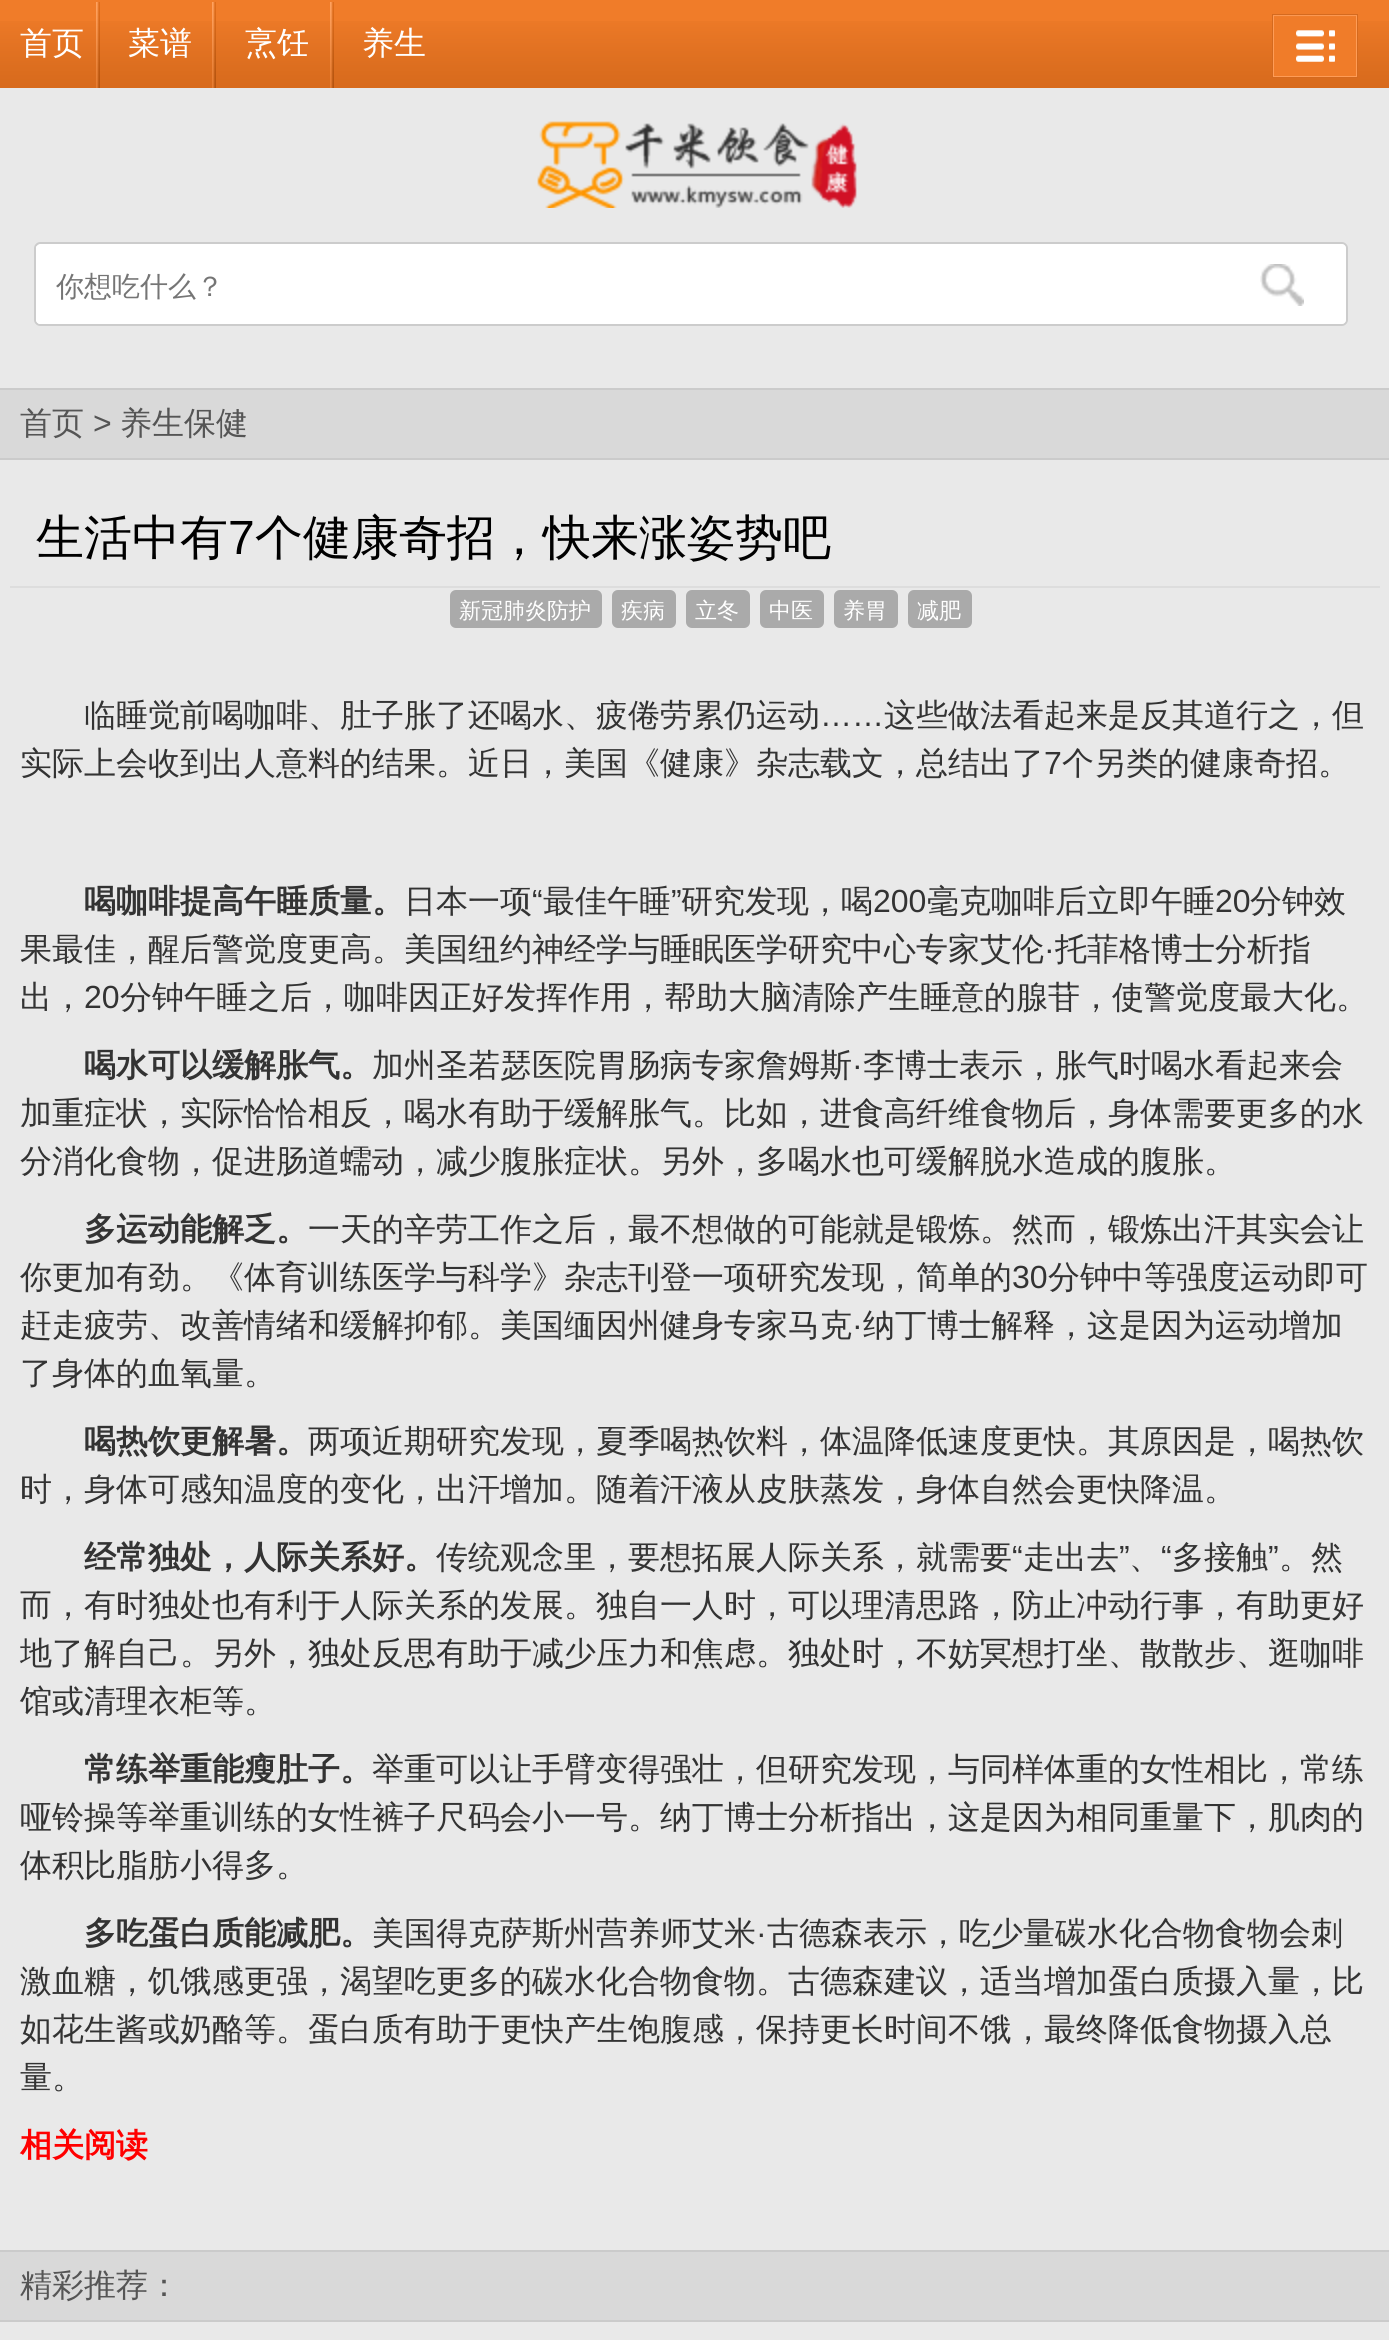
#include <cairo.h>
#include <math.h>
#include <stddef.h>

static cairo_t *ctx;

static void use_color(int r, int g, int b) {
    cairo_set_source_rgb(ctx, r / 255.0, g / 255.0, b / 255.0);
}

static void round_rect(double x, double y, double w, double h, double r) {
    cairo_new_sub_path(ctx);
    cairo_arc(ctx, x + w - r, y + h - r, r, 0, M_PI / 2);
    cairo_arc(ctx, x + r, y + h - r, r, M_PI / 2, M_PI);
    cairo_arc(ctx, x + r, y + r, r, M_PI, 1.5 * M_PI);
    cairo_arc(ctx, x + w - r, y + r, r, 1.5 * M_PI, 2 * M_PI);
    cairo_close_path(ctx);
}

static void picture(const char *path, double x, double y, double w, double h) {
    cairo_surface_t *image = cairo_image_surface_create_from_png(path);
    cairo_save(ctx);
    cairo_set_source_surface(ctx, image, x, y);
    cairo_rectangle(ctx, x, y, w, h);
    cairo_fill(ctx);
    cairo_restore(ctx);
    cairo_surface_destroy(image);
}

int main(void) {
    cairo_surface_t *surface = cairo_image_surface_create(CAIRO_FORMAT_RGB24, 1389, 2340);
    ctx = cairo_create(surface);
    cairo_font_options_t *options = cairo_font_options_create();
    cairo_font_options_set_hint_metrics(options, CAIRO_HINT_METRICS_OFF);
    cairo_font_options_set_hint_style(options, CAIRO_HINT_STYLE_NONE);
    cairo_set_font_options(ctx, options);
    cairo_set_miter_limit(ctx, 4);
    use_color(233, 233, 233);
    cairo_paint(ctx);
    use_color(240, 124, 41);
    cairo_rectangle(ctx, 0, 0, 1389, 21);
    cairo_fill(ctx);
    picture("img1.png", 0, 21, 1389, 67);
    cairo_select_font_face(ctx, "WenQuanYi Zen Hei Medium", CAIRO_FONT_SLANT_NORMAL, CAIRO_FONT_WEIGHT_NORMAL);
    cairo_set_font_size(ctx, 32);
    use_color(255, 255, 255);
    cairo_move_to(ctx, 20, 54);
    cairo_show_text(ctx, "首页");
    picture("img2.png", 96, 2, 4, 86);
    cairo_move_to(ctx, 128, 54);
    cairo_show_text(ctx, "菜谱");
    picture("img2.png", 212, 2, 4, 86);
    cairo_move_to(ctx, 245, 54);
    cairo_show_text(ctx, "烹饪");
    picture("img2.png", 330, 2, 4, 86);
    cairo_move_to(ctx, 362, 54);
    cairo_show_text(ctx, "养生");
    picture("img3.png", 1272, 14, 86, 64);
    picture("img4.png", 537, 121, 320, 87);
    cairo_new_path(ctx);
    cairo_move_to(ctx, 40, 244);
    cairo_line_to(ctx, 1220, 244);
    cairo_line_to(ctx, 1220, 324);
    cairo_line_to(ctx, 40, 324);
    cairo_curve_to(ctx, 38, 324, 36, 322, 36, 320);
    cairo_line_to(ctx, 36, 248);
    cairo_curve_to(ctx, 36, 246, 38, 244, 40, 244);
    cairo_close_path(ctx);
    cairo_fill(ctx);
    use_color(204, 204, 204);
    cairo_set_fill_rule(ctx, CAIRO_FILL_RULE_EVEN_ODD);
    cairo_new_path(ctx);
    cairo_move_to(ctx, 40, 242);
    cairo_line_to(ctx, 1220, 242);
    cairo_line_to(ctx, 1220, 326);
    cairo_line_to(ctx, 40, 326);
    cairo_curve_to(ctx, 37, 326, 34, 323, 34, 320);
    cairo_line_to(ctx, 34, 248);
    cairo_curve_to(ctx, 34, 245, 37, 242, 40, 242);
    cairo_close_path(ctx);
    cairo_move_to(ctx, 40, 244);
    cairo_line_to(ctx, 1220, 244);
    cairo_line_to(ctx, 1220, 324);
    cairo_line_to(ctx, 40, 324);
    cairo_curve_to(ctx, 38, 324, 36, 322, 36, 320);
    cairo_line_to(ctx, 36, 248);
    cairo_curve_to(ctx, 36, 246, 38, 244, 40, 244);
    cairo_close_path(ctx);
    cairo_fill(ctx);
    cairo_save(ctx);
    cairo_set_fill_rule(ctx, CAIRO_FILL_RULE_WINDING);
    cairo_new_path(ctx);
    cairo_move_to(ctx, 40, 244);
    cairo_line_to(ctx, 1220, 244);
    cairo_line_to(ctx, 1220, 324);
    cairo_line_to(ctx, 40, 324);
    cairo_curve_to(ctx, 38, 324, 36, 322, 36, 320);
    cairo_line_to(ctx, 36, 248);
    cairo_curve_to(ctx, 36, 246, 38, 244, 40, 244);
    cairo_close_path(ctx);
    cairo_clip(ctx);
    use_color(255, 255, 255);
    cairo_new_path(ctx);
    cairo_move_to(ctx, 36, 246);
    cairo_line_to(ctx, 1220, 246);
    cairo_line_to(ctx, 1220, 324);
    cairo_line_to(ctx, 40, 324);
    cairo_curve_to(ctx, 38, 324, 36, 322, 36, 320);
    cairo_close_path(ctx);
    cairo_fill(ctx);
    cairo_restore(ctx);
    cairo_set_font_size(ctx, 28);
    use_color(117, 117, 117);
    cairo_move_to(ctx, 56, 296);
    cairo_show_text(ctx, "你想吃什么？");
    use_color(204, 204, 204);
    cairo_new_path(ctx);
    cairo_move_to(ctx, 1220, 242);
    cairo_line_to(ctx, 1342, 242);
    cairo_curve_to(ctx, 1345, 242, 1348, 245, 1348, 248);
    cairo_line_to(ctx, 1348, 320);
    cairo_curve_to(ctx, 1348, 323, 1345, 326, 1342, 326);
    cairo_line_to(ctx, 1220, 326);
    cairo_close_path(ctx);
    cairo_move_to(ctx, 1220, 244);
    cairo_line_to(ctx, 1342, 244);
    cairo_curve_to(ctx, 1344, 244, 1346, 246, 1346, 248);
    cairo_line_to(ctx, 1346, 320);
    cairo_curve_to(ctx, 1346, 322, 1344, 324, 1342, 324);
    cairo_line_to(ctx, 1220, 324);
    cairo_close_path(ctx);
    cairo_fill(ctx);
    use_color(255, 255, 255);
    cairo_new_path(ctx);
    cairo_move_to(ctx, 1220, 244);
    cairo_line_to(ctx, 1342, 244);
    cairo_curve_to(ctx, 1344, 244, 1346, 246, 1346, 248);
    cairo_line_to(ctx, 1346, 320);
    cairo_curve_to(ctx, 1346, 322, 1344, 324, 1342, 324);
    cairo_line_to(ctx, 1220, 324);
    cairo_close_path(ctx);
    cairo_fill(ctx);
    picture("img5.png", 1260, 264, 44, 42);
    use_color(217, 217, 217);
    cairo_rectangle(ctx, 0, 390, 1389, 68);
    cairo_fill(ctx);
    use_color(203, 203, 203);
    cairo_rectangle(ctx, 0, 388, 1389, 2);
    cairo_fill(ctx);
    cairo_rectangle(ctx, 0, 458, 1389, 2);
    cairo_fill(ctx);
    cairo_set_font_size(ctx, 32);
    use_color(85, 85, 85);
    cairo_move_to(ctx, 20, 434);
    cairo_show_text(ctx, "首页");
    cairo_select_font_face(ctx, "Liberation Sans", CAIRO_FONT_SLANT_NORMAL, CAIRO_FONT_WEIGHT_NORMAL);
    cairo_move_to(ctx, 93, 434);
    cairo_show_text(ctx, ">");
    cairo_select_font_face(ctx, "WenQuanYi Zen Hei Medium", CAIRO_FONT_SLANT_NORMAL, CAIRO_FONT_WEIGHT_NORMAL);
    cairo_move_to(ctx, 120, 434);
    cairo_show_text(ctx, "养生保健");
    cairo_set_font_size(ctx, 48);
    use_color(0, 0, 0);
    cairo_move_to(ctx, 36, 554);
    cairo_show_text(ctx, "生活中有");
    cairo_select_font_face(ctx, "Liberation Sans", CAIRO_FONT_SLANT_NORMAL, CAIRO_FONT_WEIGHT_NORMAL);
    cairo_move_to(ctx, 228, 554);
    cairo_show_text(ctx, "7");
    cairo_select_font_face(ctx, "WenQuanYi Zen Hei Medium", CAIRO_FONT_SLANT_NORMAL, CAIRO_FONT_WEIGHT_NORMAL);
    cairo_move_to(ctx, 255, 554);
    cairo_show_text(ctx, "个健康奇招，快来涨姿势吧");
    use_color(221, 221, 221);
    cairo_rectangle(ctx, 10, 586, 1370, 2);
    cairo_fill(ctx);
    use_color(170, 170, 170);
    round_rect(450, 590, 152, 38, 6);
    cairo_fill(ctx);
    cairo_set_font_size(ctx, 22);
    use_color(255, 255, 255);
    cairo_move_to(ctx, 459, 618);
    cairo_show_text(ctx, "新冠肺炎防护");
    use_color(170, 170, 170);
    round_rect(612, 590, 64, 38, 6);
    cairo_fill(ctx);
    use_color(255, 255, 255);
    cairo_move_to(ctx, 621, 618);
    cairo_show_text(ctx, "疾病");
    use_color(170, 170, 170);
    round_rect(686, 590, 64, 38, 6);
    cairo_fill(ctx);
    use_color(255, 255, 255);
    cairo_move_to(ctx, 695, 618);
    cairo_show_text(ctx, "立冬");
    use_color(170, 170, 170);
    round_rect(760, 590, 64, 38, 6);
    cairo_fill(ctx);
    use_color(255, 255, 255);
    cairo_move_to(ctx, 769, 618);
    cairo_show_text(ctx, "中医");
    use_color(170, 170, 170);
    round_rect(834, 590, 64, 38, 6);
    cairo_fill(ctx);
    use_color(255, 255, 255);
    cairo_move_to(ctx, 843, 618);
    cairo_show_text(ctx, "养胃");
    use_color(170, 170, 170);
    round_rect(908, 590, 64, 38, 6);
    cairo_fill(ctx);
    use_color(255, 255, 255);
    cairo_move_to(ctx, 917, 618);
    cairo_show_text(ctx, "减肥");
    cairo_set_font_size(ctx, 32);
    use_color(51, 51, 51);
    cairo_move_to(ctx, 84, 726);
    cairo_show_text(ctx, "临睡觉前喝咖啡、肚子胀了还喝水、疲倦劳累仍运动");
    cairo_select_font_face(ctx, "Liberation Sans", CAIRO_FONT_SLANT_NORMAL, CAIRO_FONT_WEIGHT_NORMAL);
    cairo_move_to(ctx, 820, 726);
    cairo_show_text(ctx, "……");
    cairo_select_font_face(ctx, "WenQuanYi Zen Hei Medium", CAIRO_FONT_SLANT_NORMAL, CAIRO_FONT_WEIGHT_NORMAL);
    cairo_move_to(ctx, 884, 726);
    cairo_show_text(ctx, "这些做法看起来是反其道行之，但");
    cairo_move_to(ctx, 20, 774);
    cairo_show_text(ctx, "实际上会收到出人意料的结果。近日，美国《健康》杂志载文，总结出了");
    cairo_select_font_face(ctx, "Liberation Sans", CAIRO_FONT_SLANT_NORMAL, CAIRO_FONT_WEIGHT_NORMAL);
    cairo_move_to(ctx, 1044, 774);
    cairo_show_text(ctx, "7");
    cairo_select_font_face(ctx, "WenQuanYi Zen Hei Medium", CAIRO_FONT_SLANT_NORMAL, CAIRO_FONT_WEIGHT_NORMAL);
    cairo_move_to(ctx, 1062, 774);
    cairo_show_text(ctx, "个另类的健康奇招。");
    cairo_select_font_face(ctx, "WenQuanYi Zen Hei", CAIRO_FONT_SLANT_NORMAL, CAIRO_FONT_WEIGHT_BOLD);
    cairo_move_to(ctx, 84, 912);
    cairo_show_text(ctx, "喝咖啡提高午睡质量。");
    cairo_select_font_face(ctx, "WenQuanYi Zen Hei Medium", CAIRO_FONT_SLANT_NORMAL, CAIRO_FONT_WEIGHT_NORMAL);
    cairo_move_to(ctx, 404, 912);
    cairo_show_text(ctx, "日本一项");
    cairo_select_font_face(ctx, "Liberation Sans", CAIRO_FONT_SLANT_NORMAL, CAIRO_FONT_WEIGHT_NORMAL);
    cairo_move_to(ctx, 532, 912);
    cairo_show_text(ctx, "“");
    cairo_select_font_face(ctx, "WenQuanYi Zen Hei Medium", CAIRO_FONT_SLANT_NORMAL, CAIRO_FONT_WEIGHT_NORMAL);
    cairo_move_to(ctx, 543, 912);
    cairo_show_text(ctx, "最佳午睡");
    cairo_select_font_face(ctx, "Liberation Sans", CAIRO_FONT_SLANT_NORMAL, CAIRO_FONT_WEIGHT_NORMAL);
    cairo_move_to(ctx, 671, 912);
    cairo_show_text(ctx, "”");
    cairo_select_font_face(ctx, "WenQuanYi Zen Hei Medium", CAIRO_FONT_SLANT_NORMAL, CAIRO_FONT_WEIGHT_NORMAL);
    cairo_move_to(ctx, 681, 912);
    cairo_show_text(ctx, "研究发现，喝");
    cairo_select_font_face(ctx, "Liberation Sans", CAIRO_FONT_SLANT_NORMAL, CAIRO_FONT_WEIGHT_NORMAL);
    cairo_move_to(ctx, 873, 912);
    cairo_show_text(ctx, "200");
    cairo_select_font_face(ctx, "WenQuanYi Zen Hei Medium", CAIRO_FONT_SLANT_NORMAL, CAIRO_FONT_WEIGHT_NORMAL);
    cairo_move_to(ctx, 927, 912);
    cairo_show_text(ctx, "毫克咖啡后立即午睡");
    cairo_select_font_face(ctx, "Liberation Sans", CAIRO_FONT_SLANT_NORMAL, CAIRO_FONT_WEIGHT_NORMAL);
    cairo_move_to(ctx, 1215, 912);
    cairo_show_text(ctx, "20");
    cairo_select_font_face(ctx, "WenQuanYi Zen Hei Medium", CAIRO_FONT_SLANT_NORMAL, CAIRO_FONT_WEIGHT_NORMAL);
    cairo_move_to(ctx, 1250, 912);
    cairo_show_text(ctx, "分钟效");
    cairo_move_to(ctx, 20, 960);
    cairo_show_text(ctx, "果最佳，醒后警觉度更高。美国纽约神经学与睡眠医学研究中心专家艾伦");
    cairo_select_font_face(ctx, "Liberation Sans", CAIRO_FONT_SLANT_NORMAL, CAIRO_FONT_WEIGHT_NORMAL);
    cairo_move_to(ctx, 1044, 960);
    cairo_show_text(ctx, "·");
    cairo_select_font_face(ctx, "WenQuanYi Zen Hei Medium", CAIRO_FONT_SLANT_NORMAL, CAIRO_FONT_WEIGHT_NORMAL);
    cairo_move_to(ctx, 1055, 960);
    cairo_show_text(ctx, "托菲格博士分析指");
    cairo_move_to(ctx, 20, 1008);
    cairo_show_text(ctx, "出，");
    cairo_select_font_face(ctx, "Liberation Sans", CAIRO_FONT_SLANT_NORMAL, CAIRO_FONT_WEIGHT_NORMAL);
    cairo_move_to(ctx, 84, 1008);
    cairo_show_text(ctx, "20");
    cairo_select_font_face(ctx, "WenQuanYi Zen Hei Medium", CAIRO_FONT_SLANT_NORMAL, CAIRO_FONT_WEIGHT_NORMAL);
    cairo_move_to(ctx, 120, 1008);
    cairo_show_text(ctx, "分钟午睡之后，咖啡因正好发挥作用，帮助大脑清除产生睡意的腺苷，使警觉度最大化。");
    cairo_select_font_face(ctx, "WenQuanYi Zen Hei", CAIRO_FONT_SLANT_NORMAL, CAIRO_FONT_WEIGHT_BOLD);
    cairo_move_to(ctx, 84, 1076);
    cairo_show_text(ctx, "喝水可以缓解胀气。");
    cairo_select_font_face(ctx, "WenQuanYi Zen Hei Medium", CAIRO_FONT_SLANT_NORMAL, CAIRO_FONT_WEIGHT_NORMAL);
    cairo_move_to(ctx, 372, 1076);
    cairo_show_text(ctx, "加州圣若瑟医院胃肠病专家詹姆斯");
    cairo_select_font_face(ctx, "Liberation Sans", CAIRO_FONT_SLANT_NORMAL, CAIRO_FONT_WEIGHT_NORMAL);
    cairo_move_to(ctx, 852, 1076);
    cairo_show_text(ctx, "·");
    cairo_select_font_face(ctx, "WenQuanYi Zen Hei Medium", CAIRO_FONT_SLANT_NORMAL, CAIRO_FONT_WEIGHT_NORMAL);
    cairo_move_to(ctx, 863, 1076);
    cairo_show_text(ctx, "李博士表示，胀气时喝水看起来会");
    cairo_move_to(ctx, 20, 1124);
    cairo_show_text(ctx, "加重症状，实际恰恰相反，喝水有助于缓解胀气。比如，进食高纤维食物后，身体需要更多的水");
    cairo_move_to(ctx, 20, 1172);
    cairo_show_text(ctx, "分消化食物，促进肠道蠕动，减少腹胀症状。另外，多喝水也可缓解脱水造成的腹胀。");
    cairo_select_font_face(ctx, "WenQuanYi Zen Hei", CAIRO_FONT_SLANT_NORMAL, CAIRO_FONT_WEIGHT_BOLD);
    cairo_move_to(ctx, 84, 1240);
    cairo_show_text(ctx, "多运动能解乏。");
    cairo_select_font_face(ctx, "WenQuanYi Zen Hei Medium", CAIRO_FONT_SLANT_NORMAL, CAIRO_FONT_WEIGHT_NORMAL);
    cairo_move_to(ctx, 308, 1240);
    cairo_show_text(ctx, "一天的辛劳工作之后，最不想做的可能就是锻炼。然而，锻炼出汗其实会让");
    cairo_move_to(ctx, 20, 1288);
    cairo_show_text(ctx, "你更加有劲。《体育训练医学与科学》杂志刊登一项研究发现，简单的");
    cairo_select_font_face(ctx, "Liberation Sans", CAIRO_FONT_SLANT_NORMAL, CAIRO_FONT_WEIGHT_NORMAL);
    cairo_move_to(ctx, 1012, 1288);
    cairo_show_text(ctx, "30");
    cairo_select_font_face(ctx, "WenQuanYi Zen Hei Medium", CAIRO_FONT_SLANT_NORMAL, CAIRO_FONT_WEIGHT_NORMAL);
    cairo_move_to(ctx, 1048, 1288);
    cairo_show_text(ctx, "分钟中等强度运动即可");
    cairo_move_to(ctx, 20, 1336);
    cairo_show_text(ctx, "赶走疲劳、改善情绪和缓解抑郁。美国缅因州健身专家马克");
    cairo_select_font_face(ctx, "Liberation Sans", CAIRO_FONT_SLANT_NORMAL, CAIRO_FONT_WEIGHT_NORMAL);
    cairo_move_to(ctx, 852, 1336);
    cairo_show_text(ctx, "·");
    cairo_select_font_face(ctx, "WenQuanYi Zen Hei Medium", CAIRO_FONT_SLANT_NORMAL, CAIRO_FONT_WEIGHT_NORMAL);
    cairo_move_to(ctx, 863, 1336);
    cairo_show_text(ctx, "纳丁博士解释，这是因为运动增加");
    cairo_move_to(ctx, 20, 1384);
    cairo_show_text(ctx, "了身体的血氧量。");
    cairo_select_font_face(ctx, "WenQuanYi Zen Hei", CAIRO_FONT_SLANT_NORMAL, CAIRO_FONT_WEIGHT_BOLD);
    cairo_move_to(ctx, 84, 1452);
    cairo_show_text(ctx, "喝热饮更解暑。");
    cairo_select_font_face(ctx, "WenQuanYi Zen Hei Medium", CAIRO_FONT_SLANT_NORMAL, CAIRO_FONT_WEIGHT_NORMAL);
    cairo_move_to(ctx, 308, 1452);
    cairo_show_text(ctx, "两项近期研究发现，夏季喝热饮料，体温降低速度更快。其原因是，喝热饮");
    cairo_move_to(ctx, 20, 1500);
    cairo_show_text(ctx, "时，身体可感知温度的变化，出汗增加。随着汗液从皮肤蒸发，身体自然会更快降温。");
    cairo_select_font_face(ctx, "WenQuanYi Zen Hei", CAIRO_FONT_SLANT_NORMAL, CAIRO_FONT_WEIGHT_BOLD);
    cairo_move_to(ctx, 84, 1568);
    cairo_show_text(ctx, "经常独处，人际关系好。");
    cairo_select_font_face(ctx, "WenQuanYi Zen Hei Medium", CAIRO_FONT_SLANT_NORMAL, CAIRO_FONT_WEIGHT_NORMAL);
    cairo_move_to(ctx, 436, 1568);
    cairo_show_text(ctx, "传统观念里，要想拓展人际关系，就需要");
    cairo_select_font_face(ctx, "Liberation Sans", CAIRO_FONT_SLANT_NORMAL, CAIRO_FONT_WEIGHT_NORMAL);
    cairo_move_to(ctx, 1012, 1568);
    cairo_show_text(ctx, "“");
    cairo_select_font_face(ctx, "WenQuanYi Zen Hei Medium", CAIRO_FONT_SLANT_NORMAL, CAIRO_FONT_WEIGHT_NORMAL);
    cairo_move_to(ctx, 1023, 1568);
    cairo_show_text(ctx, "走出去");
    cairo_select_font_face(ctx, "Liberation Sans", CAIRO_FONT_SLANT_NORMAL, CAIRO_FONT_WEIGHT_NORMAL);
    cairo_move_to(ctx, 1119, 1568);
    cairo_show_text(ctx, "”");
    cairo_move_to(ctx, 1161, 1568);
    cairo_show_text(ctx, "“");
    cairo_select_font_face(ctx, "WenQuanYi Zen Hei Medium", CAIRO_FONT_SLANT_NORMAL, CAIRO_FONT_WEIGHT_NORMAL);
    cairo_move_to(ctx, 1172, 1568);
    cairo_show_text(ctx, "多接触");
    cairo_select_font_face(ctx, "Liberation Sans", CAIRO_FONT_SLANT_NORMAL, CAIRO_FONT_WEIGHT_NORMAL);
    cairo_move_to(ctx, 1268, 1568);
    cairo_show_text(ctx, "”");
    cairo_select_font_face(ctx, "WenQuanYi Zen Hei Medium", CAIRO_FONT_SLANT_NORMAL, CAIRO_FONT_WEIGHT_NORMAL);
    cairo_move_to(ctx, 1279, 1568);
    cairo_show_text(ctx, "。然");
    cairo_move_to(ctx, 1129, 1568);
    cairo_show_text(ctx, "、");
    cairo_move_to(ctx, 20, 1616);
    cairo_show_text(ctx, "而，有时独处也有利于人际关系的发展。独自一人时，可以理清思路，防止冲动行事，有助更好");
    cairo_move_to(ctx, 20, 1664);
    cairo_show_text(ctx, "地了解自己。另外，独处反思有助于减少压力和焦虑。独处时，不妨冥想打坐、散散步、逛咖啡");
    cairo_move_to(ctx, 20, 1712);
    cairo_show_text(ctx, "馆或清理衣柜等。");
    cairo_select_font_face(ctx, "WenQuanYi Zen Hei", CAIRO_FONT_SLANT_NORMAL, CAIRO_FONT_WEIGHT_BOLD);
    cairo_move_to(ctx, 84, 1780);
    cairo_show_text(ctx, "常练举重能瘦肚子。");
    cairo_select_font_face(ctx, "WenQuanYi Zen Hei Medium", CAIRO_FONT_SLANT_NORMAL, CAIRO_FONT_WEIGHT_NORMAL);
    cairo_move_to(ctx, 372, 1780);
    cairo_show_text(ctx, "举重可以让手臂变得强壮，但研究发现，与同样体重的女性相比，常练");
    cairo_move_to(ctx, 20, 1828);
    cairo_show_text(ctx, "哑铃操等举重训练的女性裤子尺码会小一号。纳丁博士分析指出，这是因为相同重量下，肌肉的");
    cairo_move_to(ctx, 20, 1876);
    cairo_show_text(ctx, "体积比脂肪小得多。");
    cairo_select_font_face(ctx, "WenQuanYi Zen Hei", CAIRO_FONT_SLANT_NORMAL, CAIRO_FONT_WEIGHT_BOLD);
    cairo_move_to(ctx, 84, 1944);
    cairo_show_text(ctx, "多吃蛋白质能减肥。");
    cairo_select_font_face(ctx, "WenQuanYi Zen Hei Medium", CAIRO_FONT_SLANT_NORMAL, CAIRO_FONT_WEIGHT_NORMAL);
    cairo_move_to(ctx, 372, 1944);
    cairo_show_text(ctx, "美国得克萨斯州营养师艾米");
    cairo_select_font_face(ctx, "Liberation Sans", CAIRO_FONT_SLANT_NORMAL, CAIRO_FONT_WEIGHT_NORMAL);
    cairo_move_to(ctx, 756, 1944);
    cairo_show_text(ctx, "·");
    cairo_select_font_face(ctx, "WenQuanYi Zen Hei Medium", CAIRO_FONT_SLANT_NORMAL, CAIRO_FONT_WEIGHT_NORMAL);
    cairo_move_to(ctx, 767, 1944);
    cairo_show_text(ctx, "古德森表示，吃少量碳水化合物食物会刺");
    cairo_move_to(ctx, 20, 1992);
    cairo_show_text(ctx, "激血糖，饥饿感更强，渴望吃更多的碳水化合物食物。古德森建议，适当增加蛋白质摄入量，比");
    cairo_move_to(ctx, 20, 2040);
    cairo_show_text(ctx, "如花生酱或奶酪等。蛋白质有助于更快产生饱腹感，保持更长时间不饿，最终降低食物摄入总");
    cairo_move_to(ctx, 20, 2088);
    cairo_show_text(ctx, "量。");
    cairo_select_font_face(ctx, "WenQuanYi Zen Hei", CAIRO_FONT_SLANT_NORMAL, CAIRO_FONT_WEIGHT_BOLD);
    use_color(255, 0, 0);
    cairo_move_to(ctx, 20, 2156);
    cairo_show_text(ctx, "相关阅读");
    use_color(217, 217, 217);
    cairo_rectangle(ctx, 0, 2252, 1389, 68);
    cairo_fill(ctx);
    use_color(203, 203, 203);
    cairo_rectangle(ctx, 0, 2250, 1389, 2);
    cairo_fill(ctx);
    cairo_rectangle(ctx, 0, 2320, 1389, 2);
    cairo_fill(ctx);
    cairo_select_font_face(ctx, "WenQuanYi Zen Hei Medium", CAIRO_FONT_SLANT_NORMAL, CAIRO_FONT_WEIGHT_NORMAL);
    use_color(85, 85, 85);
    cairo_move_to(ctx, 20, 2296);
    cairo_show_text(ctx, "精彩推荐：");
    cairo_surface_write_to_png(surface, "result.png");
    cairo_font_options_destroy(options);
    cairo_destroy(ctx);
    cairo_surface_destroy(surface);
    return 0;
}
